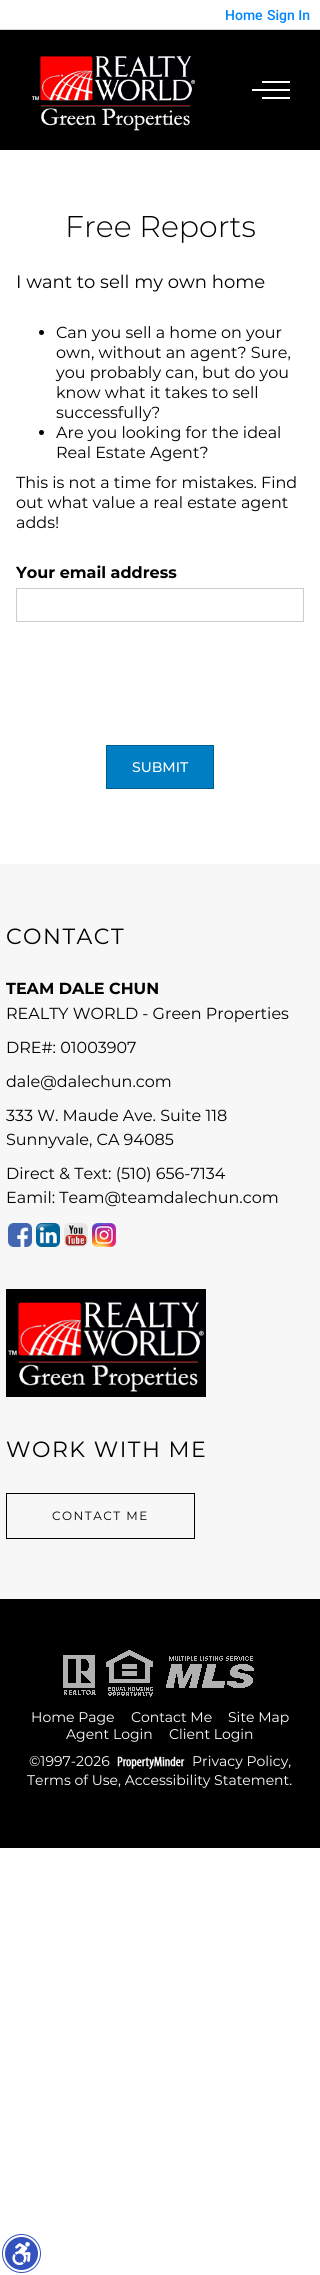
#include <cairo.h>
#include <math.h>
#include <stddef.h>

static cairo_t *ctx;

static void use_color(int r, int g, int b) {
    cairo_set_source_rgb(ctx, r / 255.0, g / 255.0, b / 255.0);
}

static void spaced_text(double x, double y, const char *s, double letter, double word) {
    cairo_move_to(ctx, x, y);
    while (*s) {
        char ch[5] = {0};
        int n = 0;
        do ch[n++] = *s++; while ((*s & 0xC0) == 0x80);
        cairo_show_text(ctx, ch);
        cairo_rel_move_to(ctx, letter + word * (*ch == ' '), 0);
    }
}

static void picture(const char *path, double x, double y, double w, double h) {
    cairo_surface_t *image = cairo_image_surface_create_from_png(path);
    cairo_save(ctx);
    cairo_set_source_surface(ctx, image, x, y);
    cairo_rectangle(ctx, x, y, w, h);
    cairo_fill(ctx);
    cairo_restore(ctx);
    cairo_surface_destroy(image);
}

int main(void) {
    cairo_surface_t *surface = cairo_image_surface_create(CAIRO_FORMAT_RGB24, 320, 2275);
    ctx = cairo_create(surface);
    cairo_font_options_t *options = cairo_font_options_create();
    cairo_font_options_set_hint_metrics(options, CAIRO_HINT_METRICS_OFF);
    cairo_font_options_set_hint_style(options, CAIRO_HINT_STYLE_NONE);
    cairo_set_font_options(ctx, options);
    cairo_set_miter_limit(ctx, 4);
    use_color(255, 255, 255);
    cairo_paint(ctx);
    use_color(214, 214, 214);
    cairo_rectangle(ctx, 0, 29, 320, 1);
    cairo_fill(ctx);
    cairo_select_font_face(ctx, "Roboto Medium", CAIRO_FONT_SLANT_NORMAL, CAIRO_FONT_WEIGHT_NORMAL);
    cairo_set_font_size(ctx, 14);
    use_color(0, 132, 255);
    cairo_move_to(ctx, 225, 20);
    cairo_show_text(ctx, "Home");
    cairo_move_to(ctx, 267, 20);
    cairo_show_text(ctx, "Sign In");
    use_color(0, 0, 0);
    cairo_rectangle(ctx, 0, 30, 320, 120);
    cairo_fill(ctx);
    picture("img1.png", 32, 56, 163, 75);
    use_color(255, 255, 255);
    cairo_rectangle(ctx, 262, 81, 28, 2);
    cairo_fill(ctx);
    cairo_rectangle(ctx, 252, 89, 38, 2);
    cairo_fill(ctx);
    cairo_rectangle(ctx, 262, 97, 28, 2);
    cairo_fill(ctx);
    cairo_select_font_face(ctx, "Montserrat Light", CAIRO_FONT_SLANT_NORMAL, CAIRO_FONT_WEIGHT_NORMAL);
    cairo_set_font_size(ctx, 30);
    use_color(0, 0, 0);
    cairo_move_to(ctx, 65, 237);
    cairo_show_text(ctx, "Free Reports");
    cairo_select_font_face(ctx, "Montserrat", CAIRO_FONT_SLANT_NORMAL, CAIRO_FONT_WEIGHT_NORMAL);
    cairo_set_font_size(ctx, 18);
    cairo_move_to(ctx, 16, 288);
    cairo_show_text(ctx, "I want to sell my own home");
    cairo_new_path(ctx);
    cairo_arc(ctx, 41.5, 332.5, 2.5, 0, 2 * M_PI);
    cairo_fill(ctx);
    cairo_set_font_size(ctx, 16);
    cairo_move_to(ctx, 56, 338);
    cairo_show_text(ctx, "Can you sell a home on your");
    cairo_move_to(ctx, 56, 358);
    cairo_show_text(ctx, "own, without an agent? Sure,");
    cairo_move_to(ctx, 56, 378);
    cairo_show_text(ctx, "you probably can, but do you");
    cairo_move_to(ctx, 56, 398);
    cairo_show_text(ctx, "know what it takes to sell");
    cairo_move_to(ctx, 56, 418);
    cairo_show_text(ctx, "successfully?");
    cairo_new_path(ctx);
    cairo_arc(ctx, 41.5, 432.5, 2.5, 0, 2 * M_PI);
    cairo_fill(ctx);
    cairo_move_to(ctx, 56, 438);
    cairo_show_text(ctx, "Are you looking for the ideal");
    cairo_move_to(ctx, 56, 458);
    cairo_show_text(ctx, "Real Estate Agent?");
    cairo_move_to(ctx, 16, 488);
    cairo_show_text(ctx, "This is not a time for mistakes. Find");
    cairo_move_to(ctx, 16, 508);
    cairo_show_text(ctx, "out what value a real estate agent");
    cairo_move_to(ctx, 16, 528);
    cairo_show_text(ctx, "adds!");
    cairo_select_font_face(ctx, "Montserrat", CAIRO_FONT_SLANT_NORMAL, CAIRO_FONT_WEIGHT_BOLD);
    cairo_move_to(ctx, 16, 578);
    cairo_show_text(ctx, "Your email address");
    cairo_rectangle(ctx, 16.5, 588.5, 287, 33);
    use_color(204, 204, 204);
    cairo_set_line_width(ctx, 1);
    cairo_stroke(ctx);
    use_color(0, 126, 196);
    cairo_rectangle(ctx, 106.5, 745.5, 107, 43);
    cairo_fill_preserve(ctx);
    use_color(0, 90, 140);
    cairo_stroke(ctx);
    cairo_select_font_face(ctx, "Montserrat Medium", CAIRO_FONT_SLANT_NORMAL, CAIRO_FONT_WEIGHT_NORMAL);
    cairo_set_font_size(ctx, 14);
    use_color(255, 255, 255);
    cairo_move_to(ctx, 132, 772);
    cairo_show_text(ctx, "SUBMIT");
    use_color(247, 247, 247);
    cairo_rectangle(ctx, 0, 864, 320, 735);
    cairo_fill(ctx);
    cairo_select_font_face(ctx, "Montserrat", CAIRO_FONT_SLANT_NORMAL, CAIRO_FONT_WEIGHT_NORMAL);
    cairo_set_font_size(ctx, 22);
    use_color(0, 0, 0);
    spaced_text(6, 944, "CONTACT", 1.5, 0);
    cairo_select_font_face(ctx, "Montserrat", CAIRO_FONT_SLANT_NORMAL, CAIRO_FONT_WEIGHT_BOLD);
    cairo_set_font_size(ctx, 16);
    cairo_move_to(ctx, 6, 994);
    cairo_show_text(ctx, "TEAM DALE CHUN");
    cairo_select_font_face(ctx, "Montserrat", CAIRO_FONT_SLANT_NORMAL, CAIRO_FONT_WEIGHT_NORMAL);
    cairo_move_to(ctx, 6, 1019);
    cairo_show_text(ctx, "REALTY WORLD - Green Properties");
    cairo_move_to(ctx, 6, 1053);
    cairo_show_text(ctx, "DRE#: 01003907");
    cairo_move_to(ctx, 6, 1087);
    cairo_show_text(ctx, "dale@dalechun.com");
    cairo_move_to(ctx, 6, 1121);
    cairo_show_text(ctx, "333 W. Maude Ave. Suite 118");
    cairo_move_to(ctx, 6, 1145);
    cairo_show_text(ctx, "Sunnyvale, CA 94085");
    cairo_move_to(ctx, 6, 1179);
    cairo_show_text(ctx, "Direct & Text: (510) 656-7134");
    cairo_move_to(ctx, 6, 1203);
    cairo_show_text(ctx, "Eamil: Team@teamdalechun.com");
    picture("img2.png", 8, 1223, 24, 24);
    picture("img3.png", 36, 1223, 24, 24);
    picture("img4.png", 64, 1223, 24, 24);
    picture("img5.png", 92, 1223, 24, 24);
    picture("img6.png", 6, 1289, 200, 108);
    cairo_set_font_size(ctx, 22);
    spaced_text(6, 1457, "WORK WITH ME", 1.5, 0);
    cairo_rectangle(ctx, 6.5, 1493.5, 188, 45);
    cairo_stroke(ctx);
    cairo_set_font_size(ctx, 12);
    spaced_text(52, 1520, "CONTACT ME", 1.5, 0);
    cairo_rectangle(ctx, 0, 1599, 320, 249);
    cairo_fill(ctx);
    picture("img7.png", 63, 1650, 191, 47);
    cairo_set_font_size(ctx, 14);
    use_color(255, 255, 255);
    cairo_move_to(ctx, 31, 1722);
    cairo_show_text(ctx, "Home Page");
    cairo_move_to(ctx, 131, 1722);
    cairo_show_text(ctx, "Contact Me");
    cairo_move_to(ctx, 228, 1722);
    cairo_show_text(ctx, "Site Map");
    cairo_move_to(ctx, 66, 1739);
    cairo_show_text(ctx, "Agent Login");
    cairo_move_to(ctx, 169, 1739);
    cairo_show_text(ctx, "Client Login");
    cairo_move_to(ctx, 29, 1766);
    cairo_show_text(ctx, "©1997-2026");
    picture("img8.png", 117, 1756, 68, 13);
    cairo_move_to(ctx, 192, 1766);
    cairo_show_text(ctx, "Privacy Policy,");
    cairo_move_to(ctx, 27, 1785);
    cairo_show_text(ctx, "Terms of Use, Accessibility Statement.");
    cairo_new_path(ctx);
    cairo_arc(ctx, 21.5, 2253.5, 18.5, 0, 2 * M_PI);
    use_color(52, 82, 189);
    cairo_set_line_width(ctx, 2);
    cairo_stroke(ctx);
    cairo_arc(ctx, 21.5, 2253.5, 17.5, 0, 2 * M_PI);
    cairo_fill_preserve(ctx);
    use_color(255, 255, 255);
    cairo_stroke(ctx);
    picture("img9.png", 12, 2242, 19, 24);
    cairo_surface_write_to_png(surface, "result.png");
    cairo_font_options_destroy(options);
    cairo_destroy(ctx);
    cairo_surface_destroy(surface);
    return 0;
}
